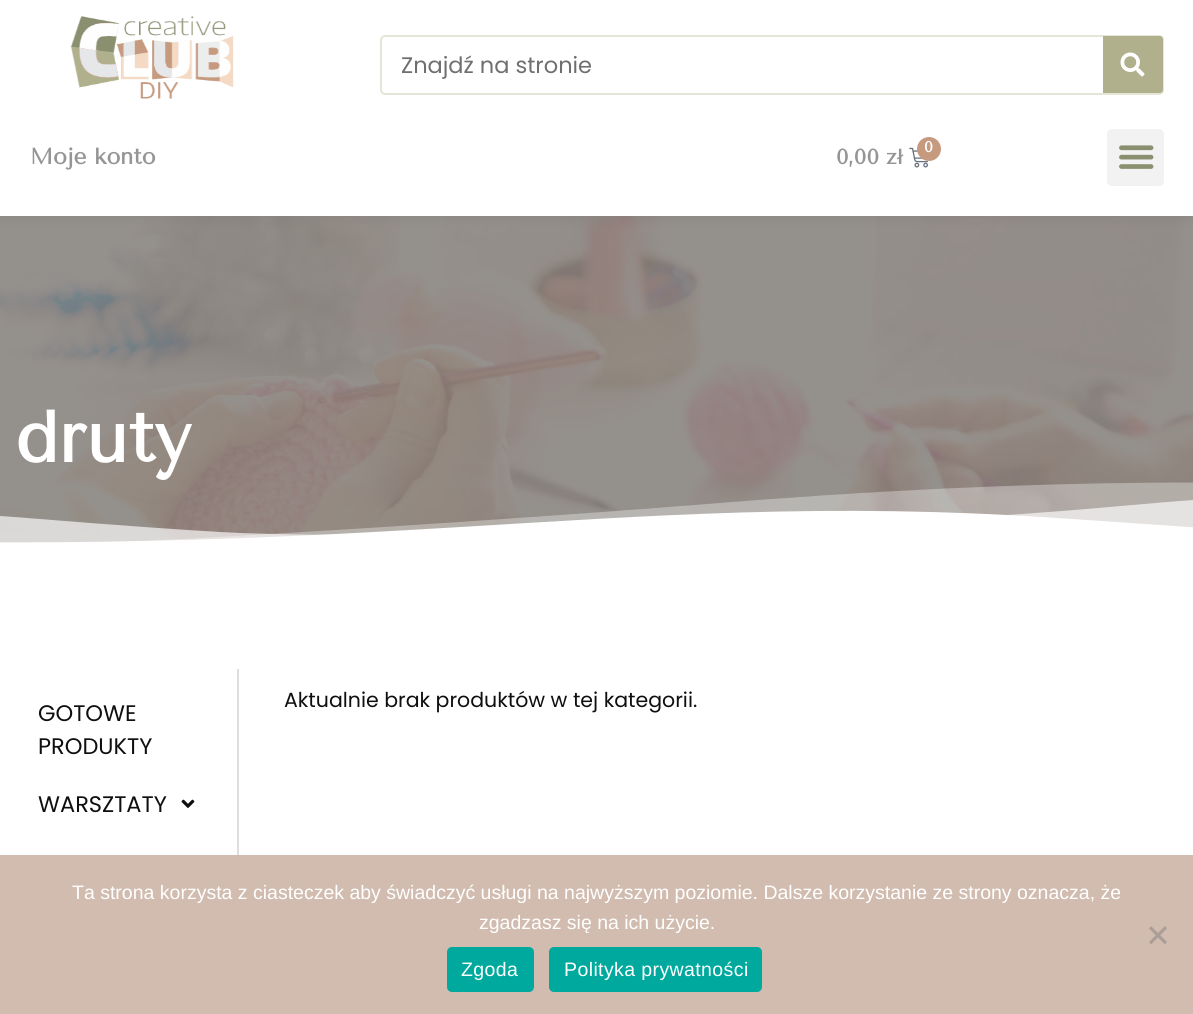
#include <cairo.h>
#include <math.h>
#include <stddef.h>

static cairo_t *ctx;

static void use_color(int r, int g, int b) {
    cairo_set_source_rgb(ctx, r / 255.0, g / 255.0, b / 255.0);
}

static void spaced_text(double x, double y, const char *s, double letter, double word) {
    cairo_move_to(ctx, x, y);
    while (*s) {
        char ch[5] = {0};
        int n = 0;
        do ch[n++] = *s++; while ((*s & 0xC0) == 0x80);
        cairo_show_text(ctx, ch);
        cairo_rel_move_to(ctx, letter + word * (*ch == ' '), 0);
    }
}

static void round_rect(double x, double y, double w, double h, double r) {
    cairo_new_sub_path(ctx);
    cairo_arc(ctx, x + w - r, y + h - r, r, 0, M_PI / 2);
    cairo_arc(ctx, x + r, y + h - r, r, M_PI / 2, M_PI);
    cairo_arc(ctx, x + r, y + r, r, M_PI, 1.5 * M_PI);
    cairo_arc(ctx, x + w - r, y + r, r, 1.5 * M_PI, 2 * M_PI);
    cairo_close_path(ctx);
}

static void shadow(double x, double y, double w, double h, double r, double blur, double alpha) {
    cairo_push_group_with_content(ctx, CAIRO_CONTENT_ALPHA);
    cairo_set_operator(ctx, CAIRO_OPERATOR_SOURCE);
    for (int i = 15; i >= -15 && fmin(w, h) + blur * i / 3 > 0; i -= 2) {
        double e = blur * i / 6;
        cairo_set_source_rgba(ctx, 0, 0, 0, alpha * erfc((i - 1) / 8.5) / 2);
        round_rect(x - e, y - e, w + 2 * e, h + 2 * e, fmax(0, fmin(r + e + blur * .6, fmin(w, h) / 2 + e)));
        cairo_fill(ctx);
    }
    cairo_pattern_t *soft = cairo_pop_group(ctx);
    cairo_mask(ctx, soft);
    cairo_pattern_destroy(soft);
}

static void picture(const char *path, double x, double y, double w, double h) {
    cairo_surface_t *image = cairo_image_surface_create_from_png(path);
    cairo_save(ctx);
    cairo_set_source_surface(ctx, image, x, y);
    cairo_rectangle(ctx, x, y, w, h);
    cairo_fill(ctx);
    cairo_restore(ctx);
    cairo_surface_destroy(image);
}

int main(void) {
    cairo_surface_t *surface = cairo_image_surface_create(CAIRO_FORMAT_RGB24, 1193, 1014);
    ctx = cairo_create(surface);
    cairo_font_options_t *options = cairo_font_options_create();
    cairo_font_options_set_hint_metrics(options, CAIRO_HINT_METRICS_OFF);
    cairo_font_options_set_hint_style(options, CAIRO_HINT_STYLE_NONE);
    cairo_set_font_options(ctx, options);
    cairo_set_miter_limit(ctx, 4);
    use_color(255, 255, 255);
    cairo_paint(ctx);
    use_color(132, 127, 123);
    cairo_rectangle(ctx, 0, 216, 1193, 327);
    cairo_fill(ctx);
    picture("img5.png", 0, 216, 1193, 327);
    use_color(0, 0, 0);
    shadow(0, 0, 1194, 216, 0, 7.5, 0.08);
    use_color(255, 255, 255);
    cairo_rectangle(ctx, 0, 0, 1193, 216);
    cairo_fill(ctx);
    picture("img1.png", 70, 16, 164, 83);
    round_rect(381, 36, 782, 58, 4);
    use_color(230, 230, 214);
    cairo_stroke(ctx);
    cairo_select_font_face(ctx, "Poppins", CAIRO_FONT_SLANT_NORMAL, CAIRO_FONT_WEIGHT_NORMAL);
    cairo_set_font_size(ctx, 22.5);
    use_color(111, 111, 111);
    cairo_move_to(ctx, 401, 73);
    cairo_show_text(ctx, "Znajdź na stronie");
    use_color(176, 176, 140);
    cairo_new_path(ctx);
    cairo_move_to(ctx, 1103, 36);
    cairo_line_to(ctx, 1160, 36);
    cairo_curve_to(ctx, 1161.5, 36, 1163, 37.5, 1163, 39);
    cairo_line_to(ctx, 1163, 90);
    cairo_curve_to(ctx, 1163, 91.5, 1161.5, 93, 1160, 93);
    cairo_line_to(ctx, 1103, 93);
    cairo_close_path(ctx);
    cairo_fill(ctx);
    picture("img2.png", 1120, 52, 25, 25);
    cairo_select_font_face(ctx, "Tenor Sans", CAIRO_FONT_SLANT_NORMAL, CAIRO_FONT_WEIGHT_BOLD);
    use_color(149, 149, 149);
    cairo_move_to(ctx, 30, 164);
    cairo_show_text(ctx, "Moje konto");
    picture("img3.png", 909, 147, 19, 21);
    use_color(198, 154, 127);
    cairo_arc(ctx, 929, 149, 12, 0, 2 * M_PI);
    cairo_fill(ctx);
    cairo_set_font_size(ctx, 15);
    use_color(255, 255, 255);
    cairo_move_to(ctx, 924, 152);
    cairo_show_text(ctx, "0");
    cairo_set_font_size(ctx, 21);
    use_color(149, 149, 149);
    cairo_move_to(ctx, 836, 164);
    cairo_show_text(ctx, "0,00 zł");
    use_color(242, 242, 242);
    round_rect(1107, 129, 57, 57, 5);
    cairo_fill(ctx);
    picture("img4.png", 1119, 145, 35, 24);
    cairo_set_font_size(ctx, 72);
    use_color(255, 255, 255);
    cairo_move_to(ctx, 15, 462);
    cairo_show_text(ctx, "druty");
    picture("img6.png", 0, 482, 1193, 67);
    cairo_select_font_face(ctx, "Poppins", CAIRO_FONT_SLANT_NORMAL, CAIRO_FONT_WEIGHT_NORMAL);
    cairo_set_font_size(ctx, 20.5);
    use_color(15, 15, 15);
    cairo_move_to(ctx, 284, 707);
    cairo_show_text(ctx, "Aktualnie brak produktów w tej kategorii.");
    use_color(222, 222, 222);
    cairo_rectangle(ctx, 237, 669, 2, 186);
    cairo_fill(ctx);
    cairo_set_font_size(ctx, 22.5);
    use_color(15, 15, 15);
    cairo_move_to(ctx, 38, 721);
    cairo_show_text(ctx, "GOTOWE");
    cairo_move_to(ctx, 38, 754);
    cairo_show_text(ctx, "PRODUKTY");
    cairo_move_to(ctx, 38, 812);
    cairo_show_text(ctx, "WARSZTATY");
    picture("img7.png", 181, 799, 14, 9);
    use_color(209, 188, 175);
    cairo_rectangle(ctx, 0, 855, 1193, 159);
    cairo_fill(ctx);
    cairo_select_font_face(ctx, "Liberation Sans", CAIRO_FONT_SLANT_NORMAL, CAIRO_FONT_WEIGHT_NORMAL);
    cairo_set_font_size(ctx, 19.5);
    use_color(255, 255, 255);
    cairo_move_to(ctx, 72, 899);
    cairo_show_text(ctx, "Ta strona korzysta z ciasteczek aby świadczyć usługi na najwyższym poziomie. Dalsze korzystanie ze strony oznacza, że");
    cairo_move_to(ctx, 479, 929);
    cairo_show_text(ctx, "zgadzasz się na ich użycie.");
    use_color(169, 158, 152);
    cairo_new_path(ctx);
    cairo_move_to(ctx, 1165, 926);
    cairo_line_to(ctx, 1167, 928.5);
    cairo_line_to(ctx, 1151, 944.5);
    cairo_line_to(ctx, 1149, 942);
    cairo_close_path(ctx);
    cairo_fill(ctx);
    cairo_new_path(ctx);
    cairo_move_to(ctx, 1149, 928.5);
    cairo_line_to(ctx, 1151, 926);
    cairo_line_to(ctx, 1167, 942);
    cairo_line_to(ctx, 1165, 944.5);
    cairo_close_path(ctx);
    cairo_fill(ctx);
    use_color(0, 169, 157);
    round_rect(447, 947, 87, 45, 5);
    cairo_fill(ctx);
    use_color(255, 255, 255);
    spaced_text(461, 976, "Zgoda", 0.4, 0);
    use_color(0, 169, 157);
    round_rect(549, 947, 213, 45, 5);
    cairo_fill(ctx);
    use_color(255, 255, 255);
    spaced_text(564, 976, "Polityka prywatności", 0.4, 0);
    cairo_surface_write_to_png(surface, "result.png");
    cairo_font_options_destroy(options);
    cairo_destroy(ctx);
    cairo_surface_destroy(surface);
    return 0;
}
